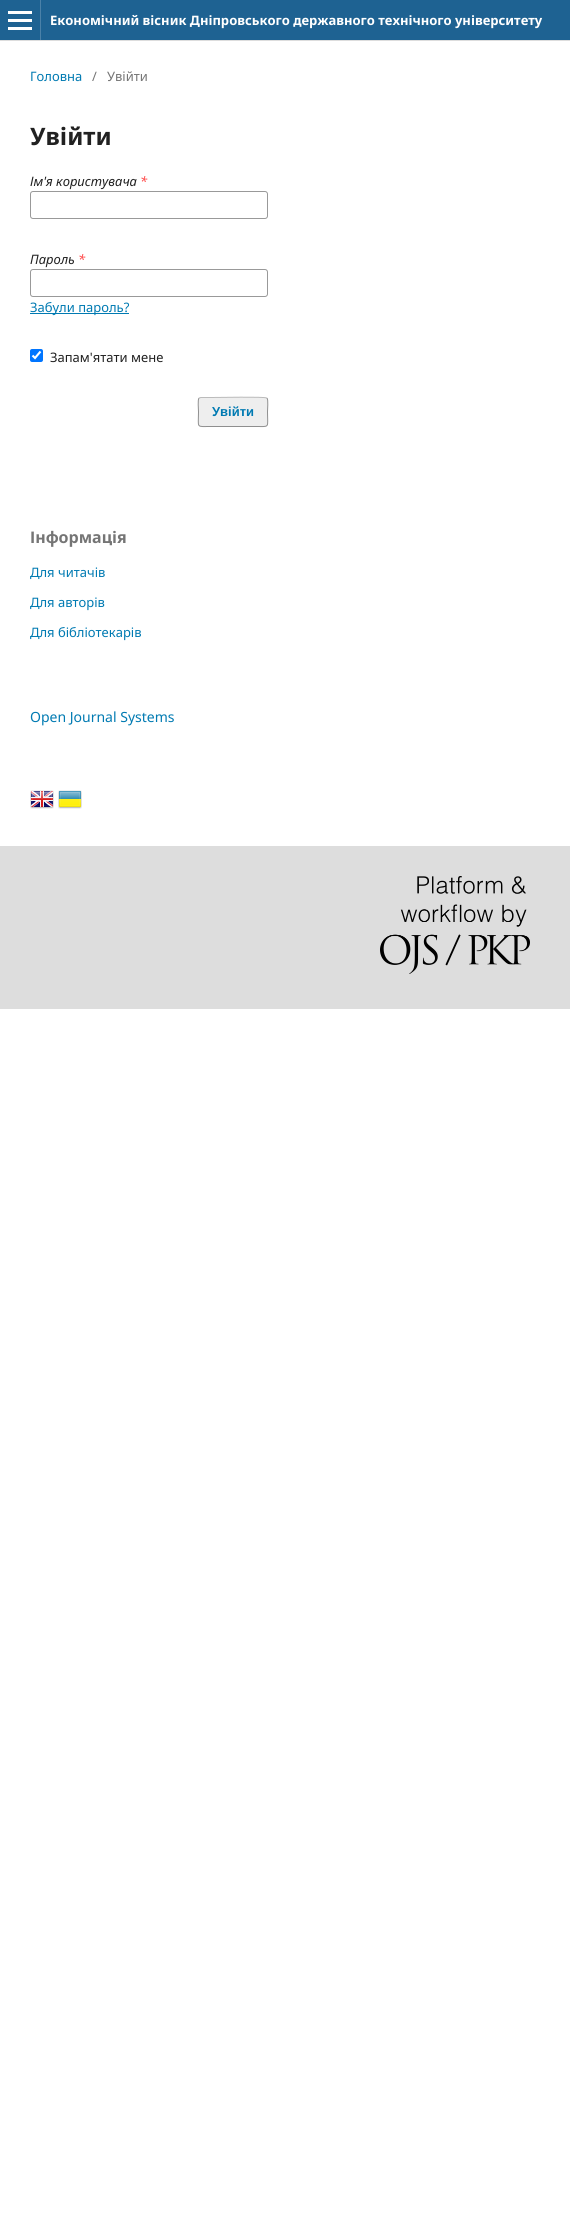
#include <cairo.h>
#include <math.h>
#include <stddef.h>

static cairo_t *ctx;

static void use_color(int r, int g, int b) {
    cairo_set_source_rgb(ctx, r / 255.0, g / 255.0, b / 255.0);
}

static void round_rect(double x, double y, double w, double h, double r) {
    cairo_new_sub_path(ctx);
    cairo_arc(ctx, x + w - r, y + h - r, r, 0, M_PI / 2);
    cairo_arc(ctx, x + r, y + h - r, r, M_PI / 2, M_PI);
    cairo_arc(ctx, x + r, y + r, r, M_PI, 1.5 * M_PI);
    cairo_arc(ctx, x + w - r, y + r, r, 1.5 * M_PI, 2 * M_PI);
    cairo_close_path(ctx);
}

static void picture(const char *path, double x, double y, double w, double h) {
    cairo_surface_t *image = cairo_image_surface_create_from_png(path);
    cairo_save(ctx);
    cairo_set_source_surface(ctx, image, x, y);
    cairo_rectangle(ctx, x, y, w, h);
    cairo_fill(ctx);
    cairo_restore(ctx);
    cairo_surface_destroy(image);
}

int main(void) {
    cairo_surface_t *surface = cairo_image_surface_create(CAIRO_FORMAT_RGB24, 570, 2219);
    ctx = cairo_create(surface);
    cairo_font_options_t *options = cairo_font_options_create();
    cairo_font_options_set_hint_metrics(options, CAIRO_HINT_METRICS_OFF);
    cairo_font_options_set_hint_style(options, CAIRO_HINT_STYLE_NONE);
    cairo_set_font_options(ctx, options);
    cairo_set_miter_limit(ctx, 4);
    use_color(255, 255, 255);
    cairo_paint(ctx);
    use_color(30, 98, 146);
    cairo_rectangle(ctx, 0, 0, 570, 40);
    cairo_fill(ctx);
    use_color(221, 221, 221);
    cairo_rectangle(ctx, 0, 40, 570, 1);
    cairo_fill(ctx);
    use_color(75, 129, 168);
    cairo_rectangle(ctx, 40, 0, 1, 40);
    cairo_fill(ctx);
    use_color(255, 255, 255);
    cairo_rectangle(ctx, 8, 27, 24, 3);
    cairo_fill(ctx);
    cairo_rectangle(ctx, 8, 11, 24, 3);
    cairo_fill(ctx);
    cairo_rectangle(ctx, 8, 19, 24, 3);
    cairo_fill(ctx);
    cairo_select_font_face(ctx, "Noto Sans", CAIRO_FONT_SLANT_NORMAL, CAIRO_FONT_WEIGHT_BOLD);
    cairo_set_font_size(ctx, 13);
    cairo_move_to(ctx, 50, 25);
    cairo_show_text(ctx, "Економічний вісник Дніпровського державного технічного університету");
    cairo_select_font_face(ctx, "Noto Sans", CAIRO_FONT_SLANT_NORMAL, CAIRO_FONT_WEIGHT_NORMAL);
    use_color(0, 122, 178);
    cairo_move_to(ctx, 30, 81);
    cairo_show_text(ctx, "Головна");
    use_color(117, 117, 117);
    cairo_move_to(ctx, 92, 81);
    cairo_show_text(ctx, "/");
    cairo_move_to(ctx, 107, 81);
    cairo_show_text(ctx, "Увійти");
    cairo_select_font_face(ctx, "Noto Sans", CAIRO_FONT_SLANT_NORMAL, CAIRO_FONT_WEIGHT_BOLD);
    cairo_set_font_size(ctx, 24);
    use_color(33, 33, 33);
    cairo_move_to(ctx, 30, 145);
    cairo_show_text(ctx, "Увійти");
    cairo_select_font_face(ctx, "Noto Sans", CAIRO_FONT_SLANT_ITALIC, CAIRO_FONT_WEIGHT_NORMAL);
    cairo_set_font_size(ctx, 13);
    cairo_move_to(ctx, 30, 186);
    cairo_show_text(ctx, "Ім'я користувача");
    use_color(255, 64, 64);
    cairo_move_to(ctx, 140, 186);
    cairo_show_text(ctx, "*");
    round_rect(30.5, 191.5, 237, 27, 2.5);
    use_color(153, 153, 153);
    cairo_set_line_width(ctx, 1);
    cairo_stroke(ctx);
    use_color(33, 33, 33);
    cairo_move_to(ctx, 30, 264);
    cairo_show_text(ctx, "Пароль");
    use_color(255, 64, 64);
    cairo_move_to(ctx, 78, 264);
    cairo_show_text(ctx, "*");
    round_rect(30.5, 269.5, 237, 27, 2.5);
    use_color(153, 153, 153);
    cairo_stroke(ctx);
    use_color(0, 122, 178);
    cairo_rectangle(ctx, 30, 313, 99, 1);
    cairo_fill(ctx);
    cairo_select_font_face(ctx, "Noto Sans", CAIRO_FONT_SLANT_NORMAL, CAIRO_FONT_WEIGHT_NORMAL);
    cairo_move_to(ctx, 30, 312);
    cairo_show_text(ctx, "Забули пароль?");
    use_color(0, 117, 255);
    round_rect(30, 349, 13, 13, 2);
    cairo_fill(ctx);
    cairo_new_path(ctx);
    cairo_move_to(ctx, 32.5, 355.5);
    cairo_line_to(ctx, 35, 358);
    cairo_line_to(ctx, 40.5, 351.5);
    use_color(255, 255, 255);
    cairo_set_line_width(ctx, 2.1);
    cairo_stroke(ctx);
    use_color(33, 33, 33);
    cairo_move_to(ctx, 50, 362);
    cairo_show_text(ctx, "Запам'ятати мене");
    use_color(238, 238, 238);
    round_rect(198, 397, 70, 30, 3);
    cairo_fill(ctx);
    cairo_new_path(ctx);
    cairo_move_to(ctx, 199, 398);
    cairo_line_to(ctx, 201, 397.5);
    cairo_line_to(ctx, 211.5, 397.5);
    cairo_curve_to(ctx, 218, 397.5, 264.5, 396.5, 266.5, 398);
    cairo_line_to(ctx, 267, 398);
    use_color(187, 187, 187);
    cairo_set_line_width(ctx, 1);
    cairo_stroke(ctx);
    cairo_new_path(ctx);
    cairo_move_to(ctx, 267, 398);
    cairo_curve_to(ctx, 268.5, 400, 267.5, 409.5, 267.5, 412);
    cairo_curve_to(ctx, 267.5, 428.5, 270.5, 426.5, 254.5, 426.5);
    cairo_line_to(ctx, 211.5, 426.5);
    cairo_curve_to(ctx, 195.5, 426.5, 198.5, 428.5, 198.5, 412);
    cairo_curve_to(ctx, 198.5, 409.5, 197.5, 400, 199, 398);
    cairo_set_source_rgba(ctx, 0, 0, 0, 0.4);
    cairo_stroke(ctx);
    cairo_select_font_face(ctx, "Liberation Sans", CAIRO_FONT_SLANT_NORMAL, CAIRO_FONT_WEIGHT_BOLD);
    use_color(0, 122, 178);
    cairo_move_to(ctx, 212, 416);
    cairo_show_text(ctx, "Увійти");
    cairo_select_font_face(ctx, "Noto Sans", CAIRO_FONT_SLANT_NORMAL, CAIRO_FONT_WEIGHT_BOLD);
    cairo_set_font_size(ctx, 16);
    use_color(117, 117, 117);
    cairo_move_to(ctx, 30, 543);
    cairo_show_text(ctx, "Інформація");
    cairo_select_font_face(ctx, "Noto Sans", CAIRO_FONT_SLANT_NORMAL, CAIRO_FONT_WEIGHT_NORMAL);
    cairo_set_font_size(ctx, 13);
    use_color(0, 122, 178);
    cairo_move_to(ctx, 30, 577);
    cairo_show_text(ctx, "Для читачів");
    cairo_move_to(ctx, 30, 607);
    cairo_show_text(ctx, "Для авторів");
    cairo_move_to(ctx, 30, 637);
    cairo_show_text(ctx, "Для бібліотекарів");
    cairo_set_font_size(ctx, 14);
    cairo_move_to(ctx, 30, 722);
    cairo_show_text(ctx, "Open Journal Systems");
    picture("img1.png", 30, 790, 24, 19);
    picture("img2.png", 58, 790, 24, 19);
    use_color(221, 221, 221);
    cairo_rectangle(ctx, 0, 846, 570, 163);
    cairo_fill(ctx);
    picture("img3.png", 380, 876, 150, 98);
    cairo_surface_write_to_png(surface, "result.png");
    cairo_font_options_destroy(options);
    cairo_destroy(ctx);
    cairo_surface_destroy(surface);
    return 0;
}
